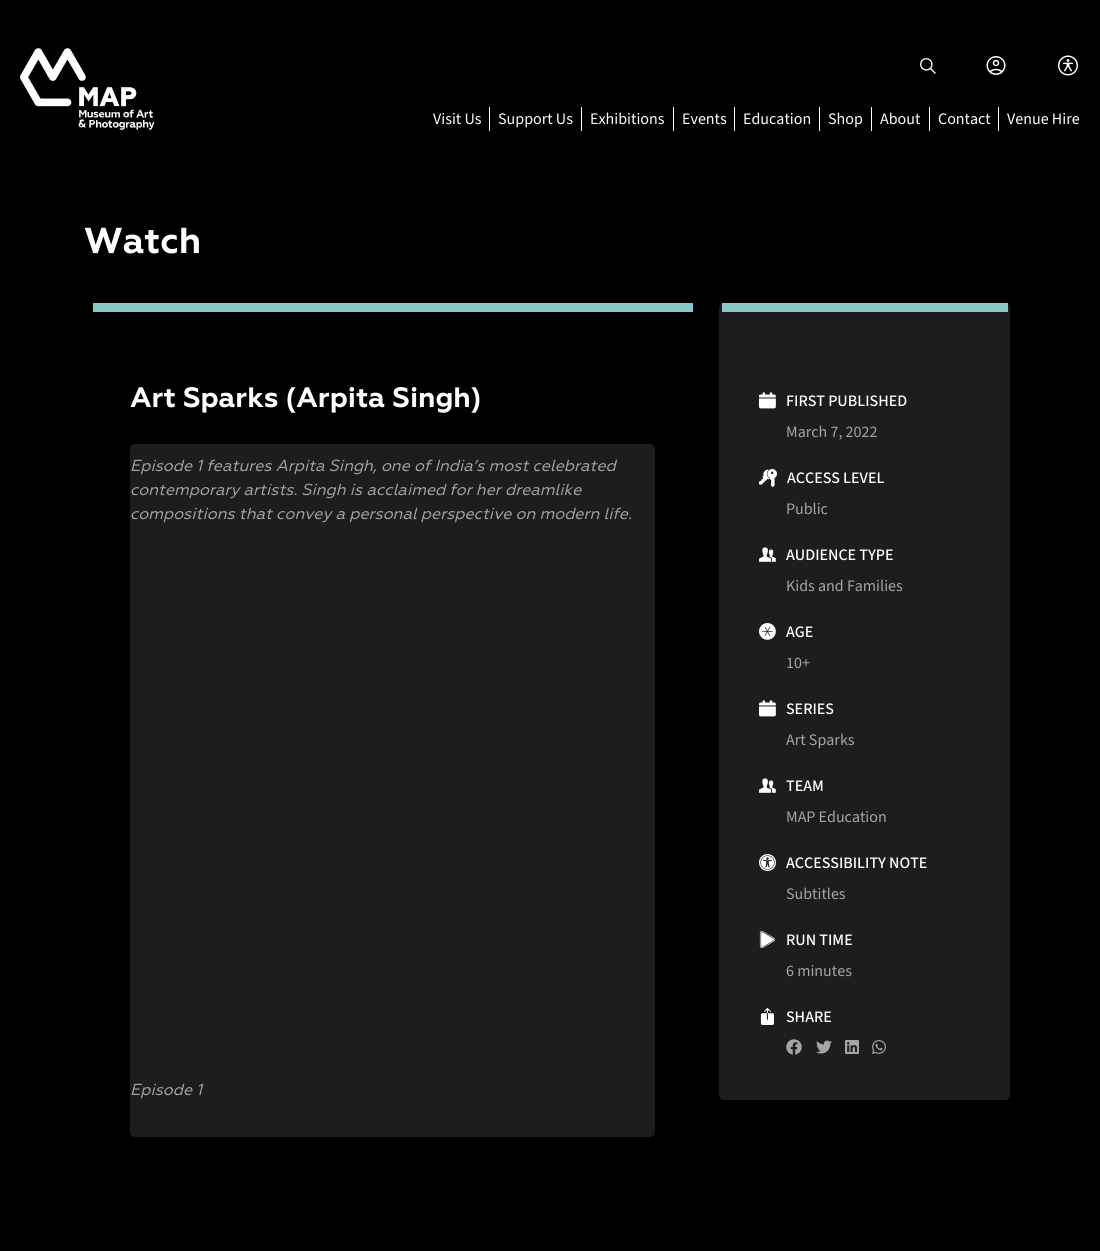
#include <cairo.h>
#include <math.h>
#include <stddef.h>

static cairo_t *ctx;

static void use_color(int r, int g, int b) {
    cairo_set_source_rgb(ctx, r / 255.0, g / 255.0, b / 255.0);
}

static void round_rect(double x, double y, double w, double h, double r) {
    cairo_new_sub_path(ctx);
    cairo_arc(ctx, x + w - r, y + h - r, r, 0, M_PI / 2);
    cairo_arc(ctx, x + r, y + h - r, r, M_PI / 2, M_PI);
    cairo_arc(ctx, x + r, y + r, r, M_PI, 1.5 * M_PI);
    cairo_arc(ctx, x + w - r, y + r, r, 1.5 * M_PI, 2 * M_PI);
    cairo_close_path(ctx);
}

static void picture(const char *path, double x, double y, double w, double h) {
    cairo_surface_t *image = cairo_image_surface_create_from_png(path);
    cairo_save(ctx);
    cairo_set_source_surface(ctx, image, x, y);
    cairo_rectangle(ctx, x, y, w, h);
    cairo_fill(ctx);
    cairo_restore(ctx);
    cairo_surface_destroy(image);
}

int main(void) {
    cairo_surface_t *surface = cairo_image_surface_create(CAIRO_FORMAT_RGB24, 1100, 1251);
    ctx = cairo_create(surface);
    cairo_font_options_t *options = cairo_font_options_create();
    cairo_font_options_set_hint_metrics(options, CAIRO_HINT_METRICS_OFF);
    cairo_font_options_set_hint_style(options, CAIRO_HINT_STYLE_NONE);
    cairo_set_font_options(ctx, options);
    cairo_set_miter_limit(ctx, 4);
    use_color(0, 0, 0);
    cairo_paint(ctx);
    picture("img1.png", 20, 48, 135, 82);
    picture("img2.png", 920, 58, 16, 16);
    picture("img3.png", 986, 56, 20, 19);
    picture("img4.png", 1058, 55, 20, 21);
    cairo_select_font_face(ctx, "Source Sans 3", CAIRO_FONT_SLANT_NORMAL, CAIRO_FONT_WEIGHT_NORMAL);
    cairo_set_font_size(ctx, 16);
    use_color(255, 255, 255);
    cairo_move_to(ctx, 433, 124);
    cairo_show_text(ctx, "Visit Us");
    cairo_rectangle(ctx, 489, 107, 1, 24);
    cairo_fill(ctx);
    cairo_move_to(ctx, 498, 124);
    cairo_show_text(ctx, "Support Us");
    cairo_rectangle(ctx, 581, 107, 1, 24);
    cairo_fill(ctx);
    cairo_move_to(ctx, 590, 124);
    cairo_show_text(ctx, "Exhibitions");
    cairo_rectangle(ctx, 673, 107, 1, 24);
    cairo_fill(ctx);
    cairo_move_to(ctx, 682, 124);
    cairo_show_text(ctx, "Events");
    cairo_rectangle(ctx, 734, 107, 1, 24);
    cairo_fill(ctx);
    cairo_move_to(ctx, 743, 124);
    cairo_show_text(ctx, "Education");
    cairo_rectangle(ctx, 819, 107, 1, 24);
    cairo_fill(ctx);
    cairo_move_to(ctx, 828, 124);
    cairo_show_text(ctx, "Shop");
    cairo_rectangle(ctx, 871, 107, 1, 24);
    cairo_fill(ctx);
    cairo_move_to(ctx, 880, 124);
    cairo_show_text(ctx, "About");
    cairo_rectangle(ctx, 929, 107, 1, 24);
    cairo_fill(ctx);
    cairo_move_to(ctx, 938, 124);
    cairo_show_text(ctx, "Contact");
    cairo_rectangle(ctx, 998, 107, 1, 24);
    cairo_fill(ctx);
    cairo_move_to(ctx, 1007, 124);
    cairo_show_text(ctx, "Venue Hire");
    cairo_select_font_face(ctx, "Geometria", CAIRO_FONT_SLANT_NORMAL, CAIRO_FONT_WEIGHT_BOLD);
    cairo_set_font_size(ctx, 36);
    cairo_move_to(ctx, 84, 253);
    cairo_show_text(ctx, "Watch");
    use_color(137, 200, 197);
    cairo_rectangle(ctx, 93, 303, 600, 9);
    cairo_fill(ctx);
    cairo_set_font_size(ctx, 28);
    use_color(255, 255, 255);
    cairo_move_to(ctx, 130, 407);
    cairo_show_text(ctx, "Art Sparks (Arpita Singh)");
    use_color(29, 29, 29);
    round_rect(130, 444, 525, 693, 5);
    cairo_fill(ctx);
    cairo_select_font_face(ctx, "Geometria", CAIRO_FONT_SLANT_ITALIC, CAIRO_FONT_WEIGHT_NORMAL);
    cairo_set_font_size(ctx, 16);
    use_color(165, 165, 165);
    cairo_move_to(ctx, 130, 471);
    cairo_show_text(ctx, "Episode 1 features Arpita Singh, one of India’s most celebrated");
    cairo_move_to(ctx, 130, 495);
    cairo_show_text(ctx, "contemporary artists. Singh is acclaimed for her dreamlike");
    cairo_move_to(ctx, 130, 519);
    cairo_show_text(ctx, "compositions that convey a personal perspective on modern life.");
    cairo_move_to(ctx, 130, 1095);
    cairo_show_text(ctx, "Episode 1");
    use_color(29, 29, 29);
    round_rect(719, 303, 291, 797, 5);
    cairo_fill(ctx);
    use_color(137, 200, 197);
    cairo_rectangle(ctx, 722, 303, 286, 9);
    cairo_fill(ctx);
    picture("img5.png", 759, 392, 17, 17);
    cairo_select_font_face(ctx, "Source Sans 3 Medium", CAIRO_FONT_SLANT_NORMAL, CAIRO_FONT_WEIGHT_NORMAL);
    use_color(255, 255, 255);
    cairo_move_to(ctx, 786, 406);
    cairo_show_text(ctx, "FIRST PUBLISHED");
    cairo_select_font_face(ctx, "Source Sans 3", CAIRO_FONT_SLANT_NORMAL, CAIRO_FONT_WEIGHT_NORMAL);
    use_color(165, 165, 165);
    cairo_move_to(ctx, 786, 437);
    cairo_show_text(ctx, "March 7, 2022");
    picture("img6.png", 759, 469, 18, 18);
    cairo_select_font_face(ctx, "Source Sans 3 Medium", CAIRO_FONT_SLANT_NORMAL, CAIRO_FONT_WEIGHT_NORMAL);
    use_color(255, 255, 255);
    cairo_move_to(ctx, 787, 483);
    cairo_show_text(ctx, "ACCESS LEVEL");
    cairo_select_font_face(ctx, "Source Sans 3", CAIRO_FONT_SLANT_NORMAL, CAIRO_FONT_WEIGHT_NORMAL);
    use_color(165, 165, 165);
    cairo_move_to(ctx, 786, 514);
    cairo_show_text(ctx, "Public");
    picture("img7.png", 759, 547, 17, 15);
    cairo_select_font_face(ctx, "Source Sans 3 Medium", CAIRO_FONT_SLANT_NORMAL, CAIRO_FONT_WEIGHT_NORMAL);
    use_color(255, 255, 255);
    cairo_move_to(ctx, 786, 560);
    cairo_show_text(ctx, "AUDIENCE TYPE");
    cairo_select_font_face(ctx, "Source Sans 3", CAIRO_FONT_SLANT_NORMAL, CAIRO_FONT_WEIGHT_NORMAL);
    use_color(165, 165, 165);
    cairo_move_to(ctx, 786, 591);
    cairo_show_text(ctx, "Kids and Families");
    picture("img8.png", 759, 623, 17, 17);
    cairo_select_font_face(ctx, "Source Sans 3 Medium", CAIRO_FONT_SLANT_NORMAL, CAIRO_FONT_WEIGHT_NORMAL);
    use_color(255, 255, 255);
    cairo_move_to(ctx, 786, 637);
    cairo_show_text(ctx, "AGE");
    cairo_select_font_face(ctx, "Source Sans 3", CAIRO_FONT_SLANT_NORMAL, CAIRO_FONT_WEIGHT_NORMAL);
    use_color(165, 165, 165);
    cairo_move_to(ctx, 786, 668);
    cairo_show_text(ctx, "10+");
    picture("img5.png", 759, 700, 17, 17);
    cairo_select_font_face(ctx, "Source Sans 3 Medium", CAIRO_FONT_SLANT_NORMAL, CAIRO_FONT_WEIGHT_NORMAL);
    use_color(255, 255, 255);
    cairo_move_to(ctx, 786, 714);
    cairo_show_text(ctx, "SERIES");
    cairo_select_font_face(ctx, "Source Sans 3", CAIRO_FONT_SLANT_NORMAL, CAIRO_FONT_WEIGHT_NORMAL);
    use_color(165, 165, 165);
    cairo_move_to(ctx, 786, 745);
    cairo_show_text(ctx, "Art Sparks");
    picture("img7.png", 759, 778, 17, 15);
    cairo_select_font_face(ctx, "Source Sans 3 Medium", CAIRO_FONT_SLANT_NORMAL, CAIRO_FONT_WEIGHT_NORMAL);
    use_color(255, 255, 255);
    cairo_move_to(ctx, 786, 791);
    cairo_show_text(ctx, "TEAM");
    cairo_select_font_face(ctx, "Source Sans 3", CAIRO_FONT_SLANT_NORMAL, CAIRO_FONT_WEIGHT_NORMAL);
    use_color(165, 165, 165);
    cairo_move_to(ctx, 786, 822);
    cairo_show_text(ctx, "MAP Education");
    picture("img9.png", 759, 854, 17, 17);
    cairo_select_font_face(ctx, "Source Sans 3 Medium", CAIRO_FONT_SLANT_NORMAL, CAIRO_FONT_WEIGHT_NORMAL);
    use_color(255, 255, 255);
    cairo_move_to(ctx, 786, 868);
    cairo_show_text(ctx, "ACCESSIBILITY NOTE");
    cairo_select_font_face(ctx, "Source Sans 3", CAIRO_FONT_SLANT_NORMAL, CAIRO_FONT_WEIGHT_NORMAL);
    use_color(165, 165, 165);
    cairo_move_to(ctx, 786, 899);
    cairo_show_text(ctx, "Subtitles");
    picture("img10.png", 759, 931, 17, 18);
    cairo_select_font_face(ctx, "Source Sans 3 Medium", CAIRO_FONT_SLANT_NORMAL, CAIRO_FONT_WEIGHT_NORMAL);
    use_color(255, 255, 255);
    cairo_move_to(ctx, 786, 945);
    cairo_show_text(ctx, "RUN TIME");
    cairo_select_font_face(ctx, "Source Sans 3", CAIRO_FONT_SLANT_NORMAL, CAIRO_FONT_WEIGHT_NORMAL);
    use_color(165, 165, 165);
    cairo_move_to(ctx, 786, 976);
    cairo_show_text(ctx, "6 minutes");
    picture("img11.png", 760, 1008, 14, 17);
    cairo_select_font_face(ctx, "Source Sans 3 Medium", CAIRO_FONT_SLANT_NORMAL, CAIRO_FONT_WEIGHT_NORMAL);
    use_color(255, 255, 255);
    cairo_move_to(ctx, 786, 1022);
    cairo_show_text(ctx, "SHARE");
    picture("img12.png", 786, 1039, 16, 16);
    picture("img13.png", 816, 1040, 16, 14);
    picture("img14.png", 845, 1040, 14, 14);
    picture("img15.png", 872, 1040, 14, 14);
    cairo_surface_write_to_png(surface, "result.png");
    cairo_font_options_destroy(options);
    cairo_destroy(ctx);
    cairo_surface_destroy(surface);
    return 0;
}
